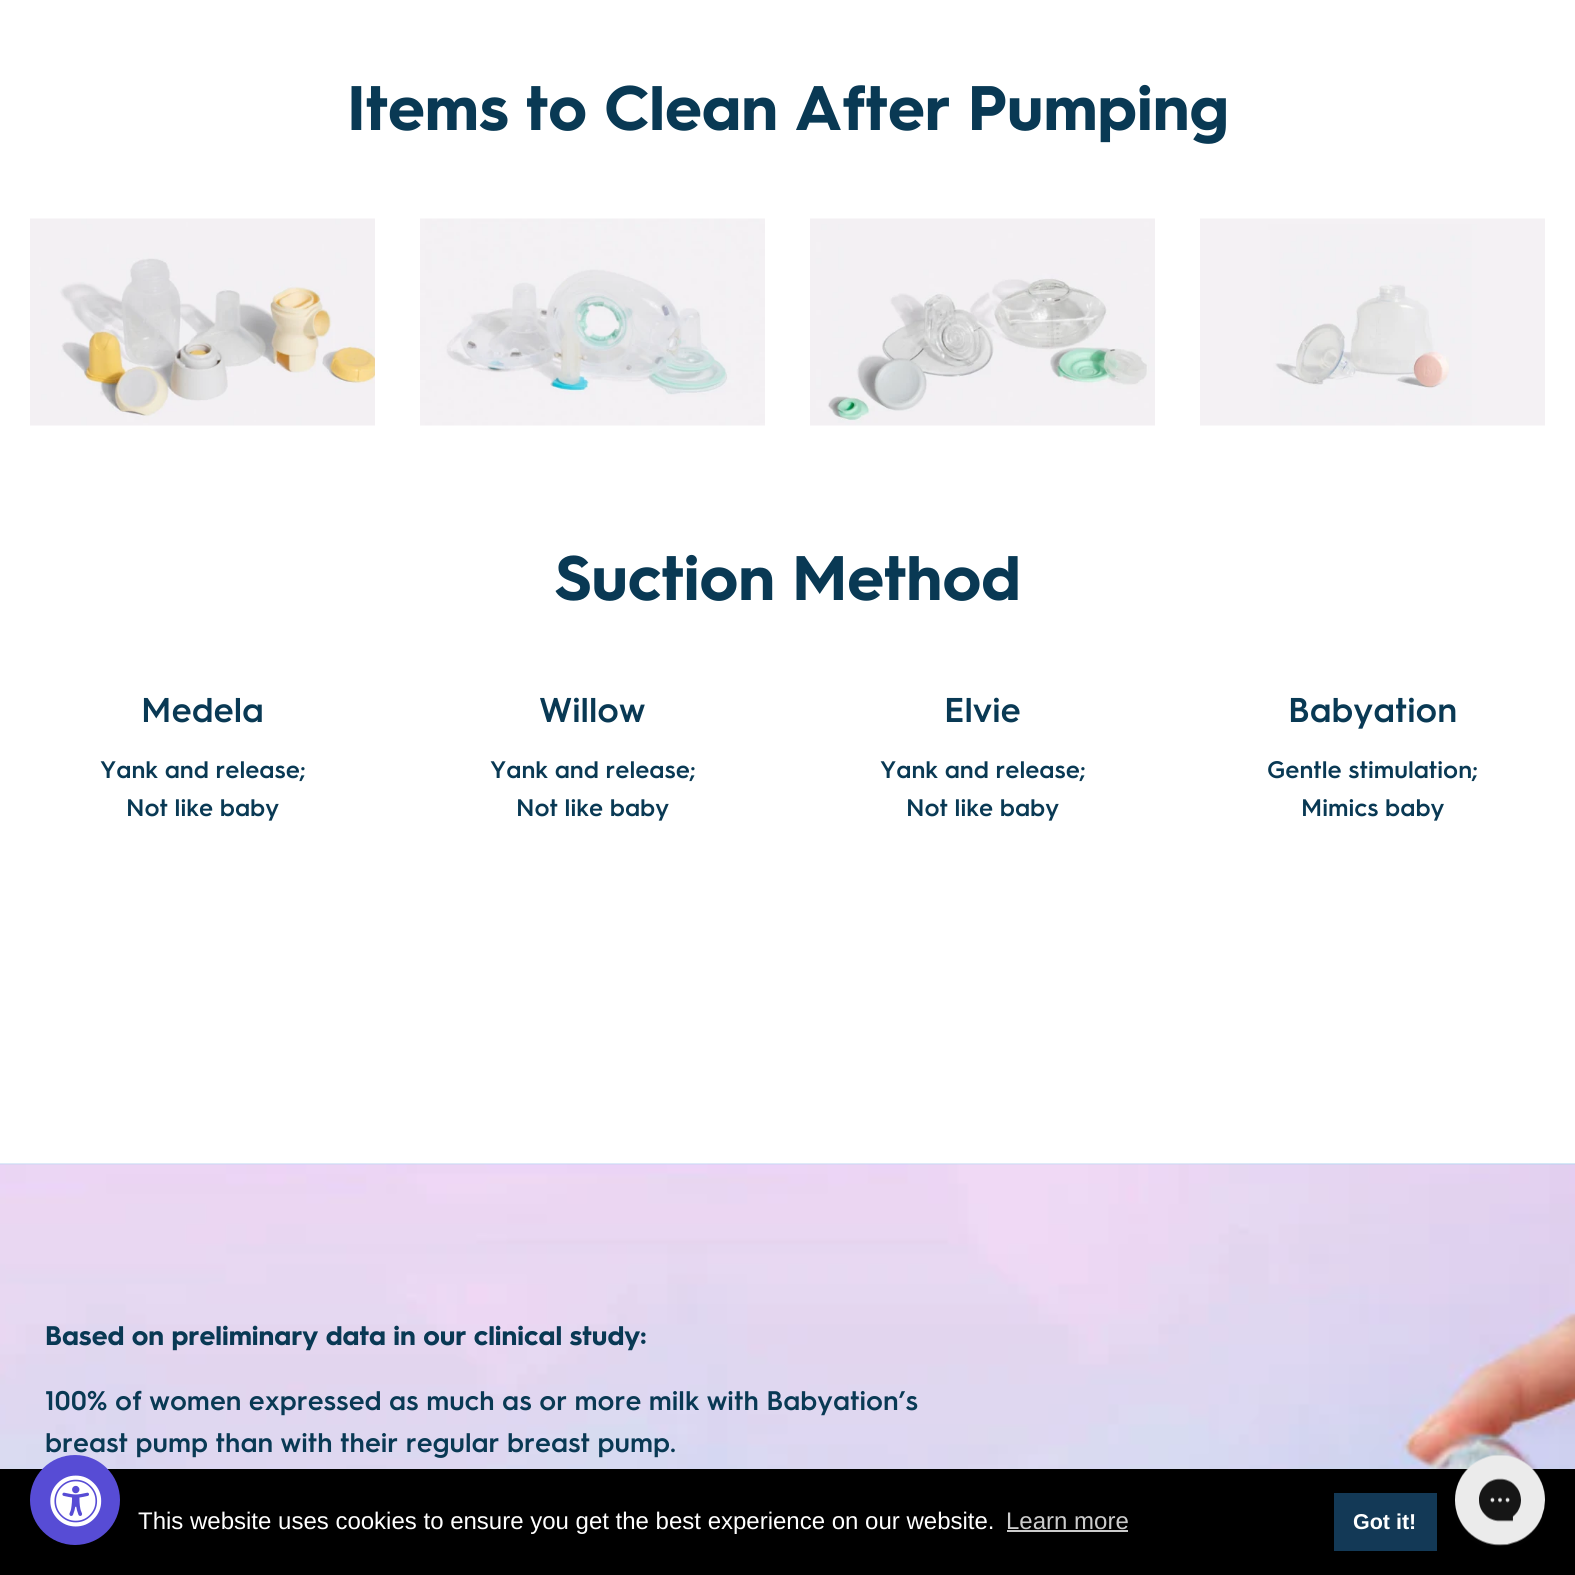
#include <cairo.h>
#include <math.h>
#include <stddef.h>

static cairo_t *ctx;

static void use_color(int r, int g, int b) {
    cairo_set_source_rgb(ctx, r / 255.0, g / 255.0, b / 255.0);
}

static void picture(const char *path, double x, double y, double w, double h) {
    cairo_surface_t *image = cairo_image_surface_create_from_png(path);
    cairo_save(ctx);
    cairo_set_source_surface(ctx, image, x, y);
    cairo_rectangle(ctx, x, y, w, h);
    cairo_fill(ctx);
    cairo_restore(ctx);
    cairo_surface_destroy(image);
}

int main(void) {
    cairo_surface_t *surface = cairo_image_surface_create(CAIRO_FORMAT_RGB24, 1575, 1575);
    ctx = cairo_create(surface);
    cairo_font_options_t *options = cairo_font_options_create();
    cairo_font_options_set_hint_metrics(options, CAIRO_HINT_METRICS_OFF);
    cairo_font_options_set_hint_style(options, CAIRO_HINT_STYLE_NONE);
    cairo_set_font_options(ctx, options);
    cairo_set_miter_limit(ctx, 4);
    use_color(255, 255, 255);
    cairo_paint(ctx);
    cairo_select_font_face(ctx, "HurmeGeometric", CAIRO_FONT_SLANT_NORMAL, CAIRO_FONT_WEIGHT_NORMAL);
    cairo_set_font_size(ctx, 63);
    use_color(9, 57, 84);
    cairo_move_to(ctx, 347, 130);
    cairo_show_text(ctx, "Items to Clean After Pumping");
    picture("img1.png", 30, 218, 345, 208);
    picture("img2.png", 420, 218, 345, 208);
    picture("img3.png", 810, 218, 345, 208);
    picture("img4.png", 1200, 218, 345, 208);
    cairo_move_to(ctx, 555, 600);
    cairo_show_text(ctx, "Suction Method");
    cairo_select_font_face(ctx, "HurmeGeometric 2", CAIRO_FONT_SLANT_NORMAL, CAIRO_FONT_WEIGHT_NORMAL);
    cairo_set_font_size(ctx, 34.5);
    cairo_move_to(ctx, 141, 722);
    cairo_show_text(ctx, "Medela");
    cairo_set_font_size(ctx, 24);
    cairo_move_to(ctx, 100, 778);
    cairo_show_text(ctx, "Yank and release;");
    cairo_move_to(ctx, 126, 816);
    cairo_show_text(ctx, "Not like baby");
    cairo_set_font_size(ctx, 34.5);
    cairo_move_to(ctx, 539, 722);
    cairo_show_text(ctx, "Willow");
    cairo_set_font_size(ctx, 24);
    cairo_move_to(ctx, 490, 778);
    cairo_show_text(ctx, "Yank and release;");
    cairo_move_to(ctx, 516, 816);
    cairo_show_text(ctx, "Not like baby");
    cairo_set_font_size(ctx, 34.5);
    cairo_move_to(ctx, 944, 722);
    cairo_show_text(ctx, "Elvie");
    cairo_set_font_size(ctx, 24);
    cairo_move_to(ctx, 880, 778);
    cairo_show_text(ctx, "Yank and release;");
    cairo_move_to(ctx, 906, 816);
    cairo_show_text(ctx, "Not like baby");
    cairo_set_font_size(ctx, 34.5);
    cairo_move_to(ctx, 1288, 722);
    cairo_show_text(ctx, "Babyation");
    cairo_set_font_size(ctx, 24);
    cairo_move_to(ctx, 1267, 778);
    cairo_show_text(ctx, "Gentle stimulation;");
    cairo_move_to(ctx, 1301, 816);
    cairo_show_text(ctx, "Mimics baby");
    picture("img5.png", 0, 1163, 1575, 306);
    cairo_select_font_face(ctx, "HurmeGeometric", CAIRO_FONT_SLANT_NORMAL, CAIRO_FONT_WEIGHT_NORMAL);
    cairo_set_font_size(ctx, 27);
    cairo_move_to(ctx, 45, 1345);
    cairo_show_text(ctx, "Based on preliminary data in our clinical study:");
    cairo_select_font_face(ctx, "HurmeGeometric 2", CAIRO_FONT_SLANT_NORMAL, CAIRO_FONT_WEIGHT_NORMAL);
    cairo_move_to(ctx, 45, 1410);
    cairo_show_text(ctx, "100% of women expressed as much as or more milk with Babyation’s");
    cairo_move_to(ctx, 45, 1452);
    cairo_show_text(ctx, "breast pump than with their regular breast pump.");
    use_color(0, 0, 0);
    cairo_rectangle(ctx, 0, 1469, 1575, 106);
    cairo_fill(ctx);
    use_color(87, 76, 213);
    cairo_arc(ctx, 75, 1500, 45, 0, 2 * M_PI);
    cairo_fill(ctx);
    picture("img6.png", 50, 1475, 52, 52);
    cairo_select_font_face(ctx, "Liberation Sans", CAIRO_FONT_SLANT_NORMAL, CAIRO_FONT_WEIGHT_NORMAL);
    cairo_set_font_size(ctx, 24);
    use_color(255, 255, 255);
    cairo_move_to(ctx, 138, 1529);
    cairo_show_text(ctx, "This website uses cookies to ensure you get the best experience on our website.");
    use_color(204, 204, 204);
    cairo_move_to(ctx, 1006, 1529);
    cairo_show_text(ctx, "Learn more");
    cairo_rectangle(ctx, 1007, 1530, 121, 2);
    cairo_fill(ctx);
    use_color(19, 57, 86);
    cairo_rectangle(ctx, 1334, 1493, 103, 58);
    cairo_fill(ctx);
    cairo_select_font_face(ctx, "Liberation Sans", CAIRO_FONT_SLANT_NORMAL, CAIRO_FONT_WEIGHT_BOLD);
    cairo_set_font_size(ctx, 21.5);
    use_color(255, 255, 255);
    cairo_move_to(ctx, 1353, 1529);
    cairo_show_text(ctx, "Got it!");
    picture("img7.png", 1455, 1455, 90, 91);
    cairo_surface_write_to_png(surface, "result.png");
    cairo_font_options_destroy(options);
    cairo_destroy(ctx);
    cairo_surface_destroy(surface);
    return 0;
}
